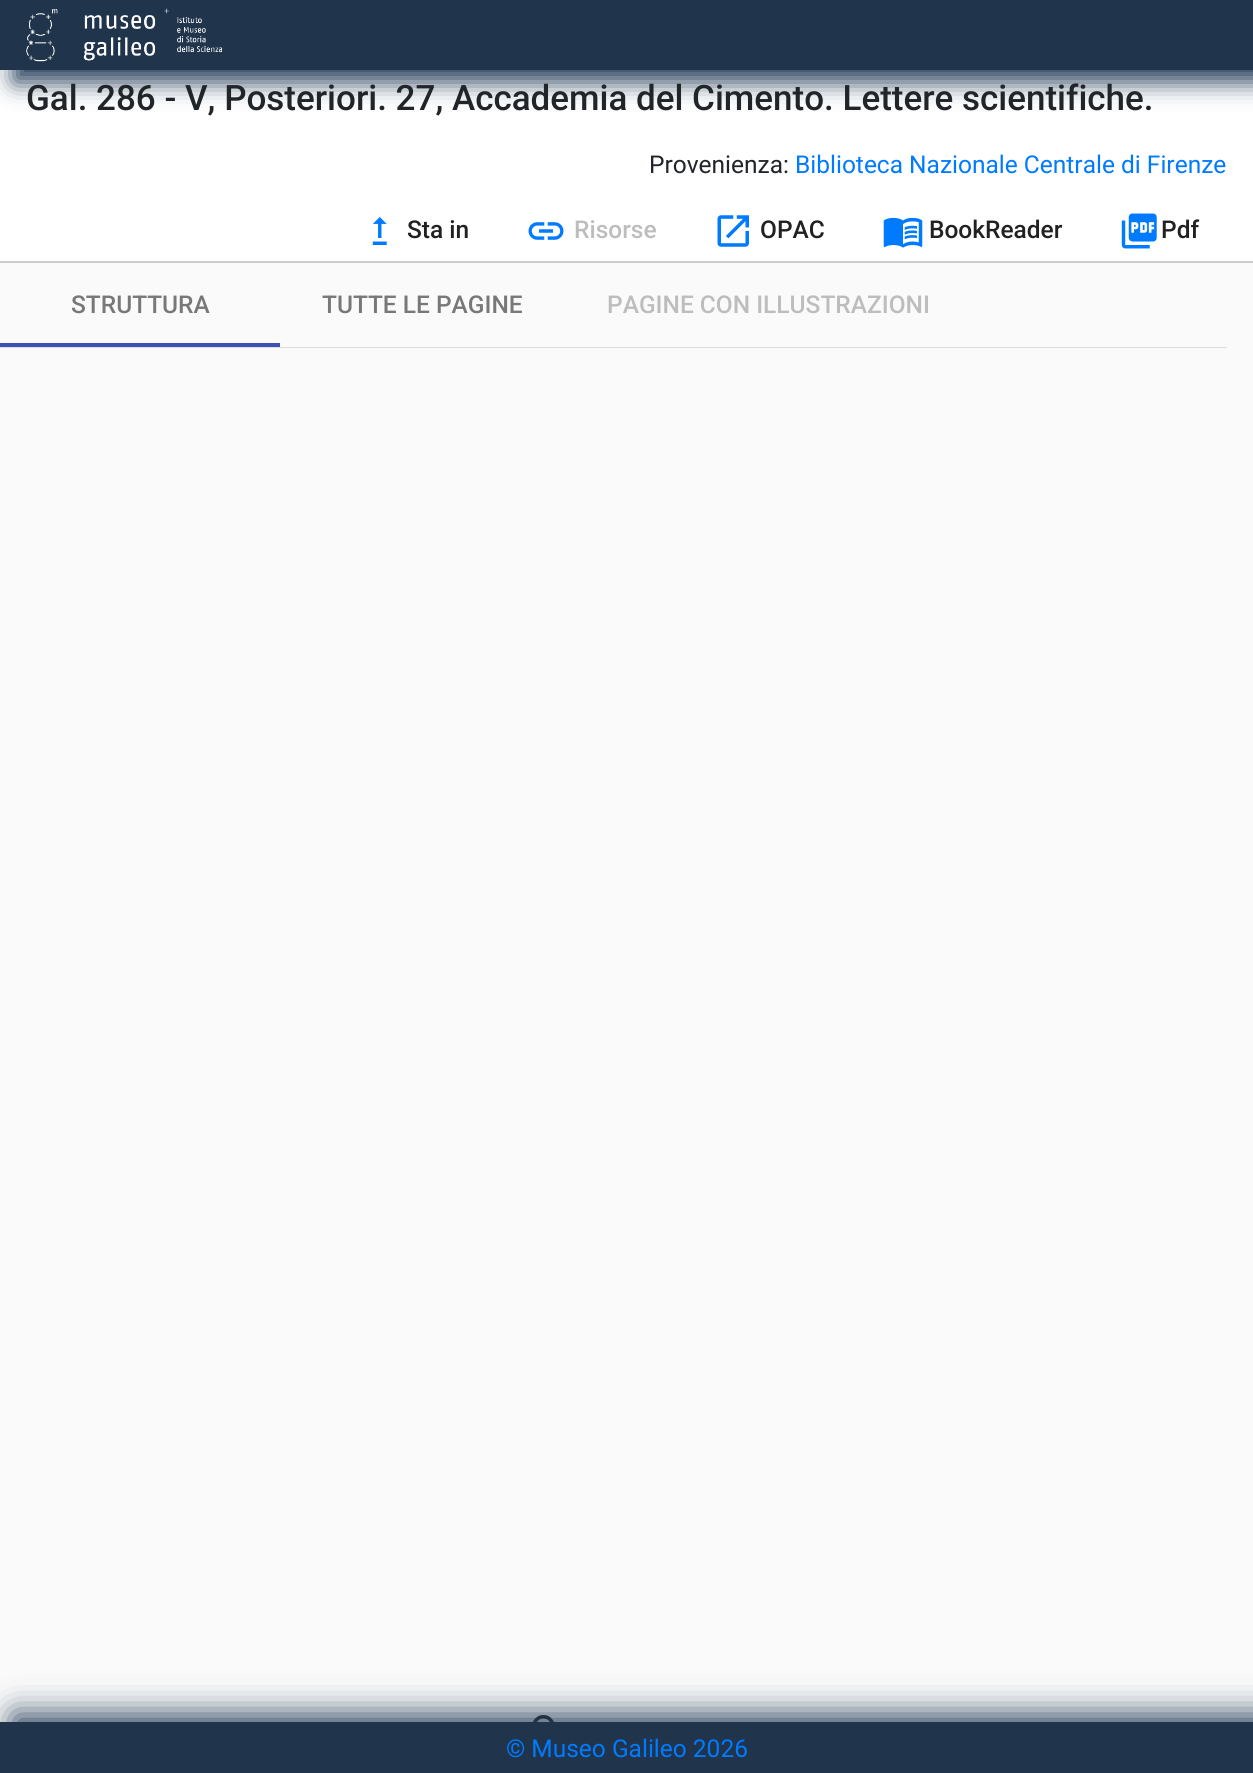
#include <cairo.h>
#include <math.h>
#include <stddef.h>

static cairo_t *ctx;

static void use_color(int r, int g, int b) {
    cairo_set_source_rgb(ctx, r / 255.0, g / 255.0, b / 255.0);
}

static void round_rect(double x, double y, double w, double h, double r) {
    cairo_new_sub_path(ctx);
    cairo_arc(ctx, x + w - r, y + h - r, r, 0, M_PI / 2);
    cairo_arc(ctx, x + r, y + h - r, r, M_PI / 2, M_PI);
    cairo_arc(ctx, x + r, y + r, r, M_PI, 1.5 * M_PI);
    cairo_arc(ctx, x + w - r, y + r, r, 1.5 * M_PI, 2 * M_PI);
    cairo_close_path(ctx);
}

static void shadow(double x, double y, double w, double h, double r, double blur, double alpha) {
    cairo_push_group_with_content(ctx, CAIRO_CONTENT_ALPHA);
    cairo_set_operator(ctx, CAIRO_OPERATOR_SOURCE);
    for (int i = 15; i >= -15 && fmin(w, h) + blur * i / 3 > 0; i -= 2) {
        double e = blur * i / 6;
        cairo_set_source_rgba(ctx, 0, 0, 0, alpha * erfc((i - 1) / 8.5) / 2);
        round_rect(x - e, y - e, w + 2 * e, h + 2 * e, fmax(0, fmin(r + e + blur * .6, fmin(w, h) / 2 + e)));
        cairo_fill(ctx);
    }
    cairo_pattern_t *soft = cairo_pop_group(ctx);
    cairo_mask(ctx, soft);
    cairo_pattern_destroy(soft);
}

static void picture(const char *path, double x, double y, double w, double h) {
    cairo_surface_t *image = cairo_image_surface_create_from_png(path);
    cairo_save(ctx);
    cairo_set_source_surface(ctx, image, x, y);
    cairo_rectangle(ctx, x, y, w, h);
    cairo_fill(ctx);
    cairo_restore(ctx);
    cairo_surface_destroy(image);
}

int main(void) {
    cairo_surface_t *surface = cairo_image_surface_create(CAIRO_FORMAT_RGB24, 1253, 1773);
    ctx = cairo_create(surface);
    cairo_font_options_t *options = cairo_font_options_create();
    cairo_font_options_set_hint_metrics(options, CAIRO_HINT_METRICS_OFF);
    cairo_font_options_set_hint_style(options, CAIRO_HINT_STYLE_NONE);
    cairo_set_font_options(ctx, options);
    cairo_set_miter_limit(ctx, 4);
    use_color(255, 255, 255);
    cairo_paint(ctx);
    use_color(37, 62, 89);
    shadow(14, 12, 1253, 70, 0, 12, 1);
    use_color(32, 52, 75);
    cairo_rectangle(ctx, 0, 0, 1253, 70);
    cairo_fill(ctx);
    picture("img1.png", 26, 8, 197, 54);
    use_color(204, 204, 204);
    cairo_rectangle(ctx, 0, 261, 1253, 2);
    cairo_fill(ctx);
    cairo_select_font_face(ctx, "Roboto Medium", CAIRO_FONT_SLANT_NORMAL, CAIRO_FONT_WEIGHT_NORMAL);
    cairo_set_font_size(ctx, 35);
    use_color(33, 37, 41);
    cairo_move_to(ctx, 26, 110);
    cairo_show_text(ctx, "Gal. 286 - V, Posteriori. 27, Accademia del Cimento. Lettere scientifiche.");
    cairo_select_font_face(ctx, "Roboto", CAIRO_FONT_SLANT_NORMAL, CAIRO_FONT_WEIGHT_NORMAL);
    cairo_set_font_size(ctx, 24.5);
    cairo_move_to(ctx, 649, 173);
    cairo_show_text(ctx, "Provenienza:");
    use_color(0, 123, 255);
    cairo_move_to(ctx, 795, 173);
    cairo_show_text(ctx, "Biblioteca Nazionale Centrale di Firenze");
    picture("img2.png", 372, 217, 15, 28);
    cairo_select_font_face(ctx, "Roboto Medium", CAIRO_FONT_SLANT_NORMAL, CAIRO_FONT_WEIGHT_NORMAL);
    use_color(33, 33, 33);
    cairo_move_to(ctx, 407, 238);
    cairo_show_text(ctx, "Sta in");
    picture("img3.png", 528, 222, 36, 18);
    use_color(189, 189, 189);
    cairo_move_to(ctx, 574, 238);
    cairo_show_text(ctx, "Risorse");
    picture("img4.png", 717, 215, 32, 32);
    use_color(33, 33, 33);
    cairo_move_to(ctx, 760, 238);
    cairo_show_text(ctx, "OPAC");
    picture("img5.png", 883, 217, 40, 31);
    cairo_move_to(ctx, 929, 238);
    cairo_show_text(ctx, "BookReader");
    picture("img6.png", 1121, 213, 36, 36);
    cairo_move_to(ctx, 1161, 238);
    cairo_show_text(ctx, "Pdf");
    use_color(250, 250, 250);
    cairo_rectangle(ctx, 0, 263, 1253, 1459);
    cairo_fill(ctx);
    use_color(220, 220, 220);
    cairo_rectangle(ctx, 0, 347, 1227, 1);
    cairo_fill(ctx);
    use_color(120, 120, 120);
    cairo_move_to(ctx, 71, 313);
    cairo_show_text(ctx, "STRUTTURA");
    cairo_move_to(ctx, 322, 313);
    cairo_show_text(ctx, "TUTTE LE PAGINE");
    use_color(189, 189, 189);
    cairo_move_to(ctx, 607, 313);
    cairo_show_text(ctx, "PAGINE CON ILLUSTRAZIONI");
    use_color(63, 81, 181);
    cairo_rectangle(ctx, 0, 343, 280, 4);
    cairo_fill(ctx);
    picture("img7.png", 533, 1715, 21, 7);
    use_color(37, 62, 89);
    shadow(14, 1715, 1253, 53, 0, 16.5, 1);
    use_color(32, 52, 75);
    cairo_rectangle(ctx, 0, 1722, 1253, 51);
    cairo_fill(ctx);
    cairo_select_font_face(ctx, "Roboto", CAIRO_FONT_SLANT_NORMAL, CAIRO_FONT_WEIGHT_NORMAL);
    use_color(0, 123, 255);
    cairo_move_to(ctx, 506, 1757);
    cairo_show_text(ctx, "© Museo Galileo 2026");
    cairo_surface_write_to_png(surface, "result.png");
    cairo_font_options_destroy(options);
    cairo_destroy(ctx);
    cairo_surface_destroy(surface);
    return 0;
}
